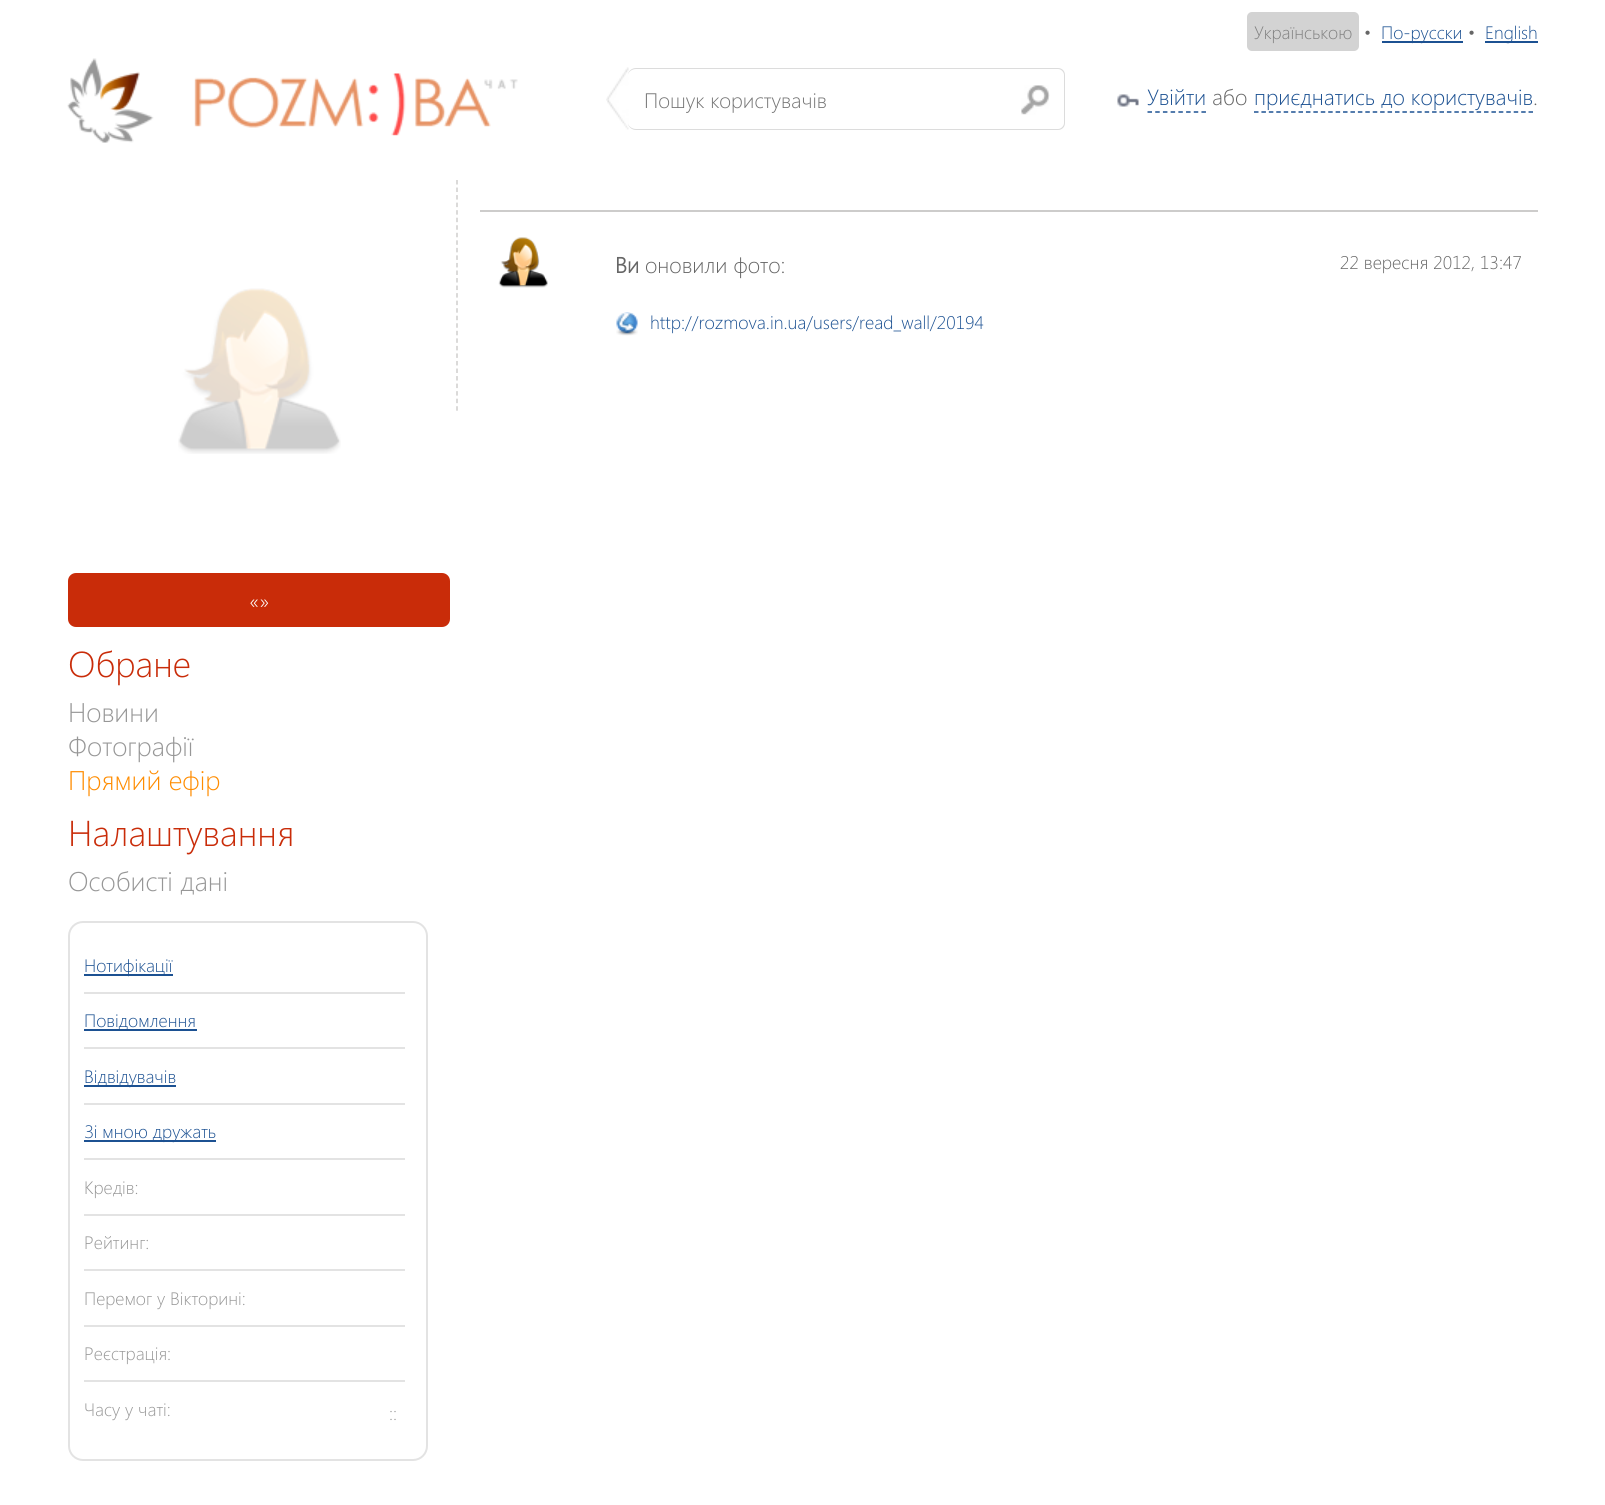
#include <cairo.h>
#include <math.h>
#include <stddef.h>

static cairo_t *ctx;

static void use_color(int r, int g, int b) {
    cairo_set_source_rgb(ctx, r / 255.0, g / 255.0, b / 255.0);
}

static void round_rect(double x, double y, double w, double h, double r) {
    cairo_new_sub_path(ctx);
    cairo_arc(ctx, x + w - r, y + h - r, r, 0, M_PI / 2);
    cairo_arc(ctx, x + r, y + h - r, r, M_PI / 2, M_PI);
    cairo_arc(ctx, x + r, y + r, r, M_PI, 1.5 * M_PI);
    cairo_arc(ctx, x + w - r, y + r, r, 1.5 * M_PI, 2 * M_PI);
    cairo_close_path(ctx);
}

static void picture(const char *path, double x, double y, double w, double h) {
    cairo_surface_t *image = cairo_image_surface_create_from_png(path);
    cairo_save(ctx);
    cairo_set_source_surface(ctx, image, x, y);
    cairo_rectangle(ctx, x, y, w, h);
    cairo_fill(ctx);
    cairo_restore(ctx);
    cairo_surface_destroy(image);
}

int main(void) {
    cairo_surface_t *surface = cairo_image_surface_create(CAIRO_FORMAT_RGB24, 1605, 1505);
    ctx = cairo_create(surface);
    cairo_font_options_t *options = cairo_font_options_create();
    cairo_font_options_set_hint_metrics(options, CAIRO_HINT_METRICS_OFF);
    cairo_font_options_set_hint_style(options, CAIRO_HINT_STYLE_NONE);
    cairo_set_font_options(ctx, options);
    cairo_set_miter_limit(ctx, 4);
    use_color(255, 255, 255);
    cairo_paint(ctx);
    use_color(211, 211, 211);
    round_rect(1247, 12, 112, 39, 5);
    cairo_fill(ctx);
    cairo_select_font_face(ctx, "Segoe UI Light", CAIRO_FONT_SLANT_NORMAL, CAIRO_FONT_WEIGHT_NORMAL);
    cairo_set_font_size(ctx, 18);
    use_color(128, 128, 128);
    cairo_move_to(ctx, 1254, 39);
    cairo_show_text(ctx, "Українською");
    use_color(102, 102, 102);
    cairo_move_to(ctx, 1364, 39);
    cairo_show_text(ctx, "•");
    use_color(28, 81, 146);
    cairo_rectangle(ctx, 1382, 41, 81, 2);
    cairo_fill(ctx);
    cairo_move_to(ctx, 1381, 39);
    cairo_show_text(ctx, "По-русски");
    use_color(102, 102, 102);
    cairo_move_to(ctx, 1468, 39);
    cairo_show_text(ctx, "•");
    use_color(28, 81, 146);
    cairo_rectangle(ctx, 1485, 41, 53, 2);
    cairo_fill(ctx);
    cairo_move_to(ctx, 1485, 39);
    cairo_show_text(ctx, "English");
    picture("img1.png", 67, 58, 451, 85);
    picture("img2.png", 606, 67, 23, 63);
    picture("img3.png", 1021, 85, 29, 30);
    use_color(220, 220, 220);
    cairo_set_fill_rule(ctx, CAIRO_FILL_RULE_EVEN_ODD);
    cairo_new_path(ctx);
    cairo_move_to(ctx, 636, 68);
    cairo_line_to(ctx, 1058, 68);
    cairo_curve_to(ctx, 1062, 68, 1065, 71, 1065, 75);
    cairo_line_to(ctx, 1065, 123);
    cairo_curve_to(ctx, 1065, 127, 1062, 130, 1058, 130);
    cairo_line_to(ctx, 636, 130);
    cairo_curve_to(ctx, 632, 130, 628, 127, 628, 123);
    cairo_line_to(ctx, 628, 75);
    cairo_curve_to(ctx, 628, 71, 632, 68, 636, 68);
    cairo_close_path(ctx);
    cairo_move_to(ctx, 636, 69);
    cairo_line_to(ctx, 1058, 69);
    cairo_curve_to(ctx, 1061, 69, 1064, 72, 1064, 75);
    cairo_line_to(ctx, 1064, 123);
    cairo_curve_to(ctx, 1064, 126, 1061, 129, 1058, 129);
    cairo_line_to(ctx, 636, 129);
    cairo_curve_to(ctx, 632, 129, 628, 126, 628, 123);
    cairo_line_to(ctx, 628, 75);
    cairo_curve_to(ctx, 628, 72, 632, 69, 636, 69);
    cairo_close_path(ctx);
    cairo_fill(ctx);
    cairo_set_font_size(ctx, 21);
    use_color(117, 117, 117);
    cairo_move_to(ctx, 644, 108);
    cairo_show_text(ctx, "Пошук користувачів");
    picture("img4.png", 1117, 94, 22, 13);
    cairo_set_font_size(ctx, 22);
    use_color(28, 81, 146);
    cairo_move_to(ctx, 1147, 105);
    cairo_show_text(ctx, "Увійти");
    cairo_new_path(ctx);
    cairo_move_to(ctx, 1147.5, 112);
    cairo_line_to(ctx, 1206, 112);
    cairo_set_line_width(ctx, 1.5);
    cairo_set_dash(ctx, (double[]){4.5, 3.21}, 2, 0);
    cairo_stroke(ctx);
    use_color(102, 102, 102);
    cairo_move_to(ctx, 1212, 105);
    cairo_show_text(ctx, "або");
    use_color(28, 81, 146);
    cairo_move_to(ctx, 1254, 105);
    cairo_show_text(ctx, "приєднатись до користувачів");
    cairo_new_path(ctx);
    cairo_move_to(ctx, 1254, 112);
    cairo_line_to(ctx, 1533, 112);
    cairo_set_dash(ctx, (double[]){4.5, 2.92}, 2, 0);
    cairo_stroke(ctx);
    use_color(102, 102, 102);
    cairo_move_to(ctx, 1533, 105);
    cairo_show_text(ctx, ".");
    cairo_new_path(ctx);
    cairo_move_to(ctx, 457, 180);
    cairo_line_to(ctx, 457, 411);
    use_color(207, 206, 205);
    cairo_set_dash(ctx, (double[]){4.5, 3.04}, 2, 0);
    cairo_stroke(ctx);
    use_color(205, 204, 203);
    cairo_rectangle(ctx, 480, 210, 1058, 2);
    cairo_fill(ctx);
    picture("img5.png", 498, 237, 50, 51);
    cairo_select_font_face(ctx, "Segoe UI", CAIRO_FONT_SLANT_NORMAL, CAIRO_FONT_WEIGHT_BOLD);
    use_color(102, 102, 102);
    cairo_move_to(ctx, 615, 273);
    cairo_show_text(ctx, "Ви");
    cairo_select_font_face(ctx, "Segoe UI Light", CAIRO_FONT_SLANT_NORMAL, CAIRO_FONT_WEIGHT_NORMAL);
    cairo_move_to(ctx, 645, 273);
    cairo_show_text(ctx, "оновили фото:");
    cairo_set_font_size(ctx, 18.3);
    cairo_move_to(ctx, 1340, 269);
    cairo_show_text(ctx, "22 вересня 2012, 13:47");
    picture("img6.png", 616, 312, 22, 24);
    use_color(28, 81, 146);
    cairo_move_to(ctx, 650, 329);
    cairo_show_text(ctx, "http://rozmova.in.ua/users/read_wall/20194");
    picture("img7.png", 178, 288, 163, 166);
    use_color(201, 44, 9);
    round_rect(68, 573, 382, 54, 8);
    cairo_fill(ctx);
    cairo_set_font_size(ctx, 22);
    use_color(255, 255, 255);
    cairo_move_to(ctx, 249, 609);
    cairo_show_text(ctx, "«»");
    cairo_set_font_size(ctx, 36);
    use_color(201, 44, 9);
    cairo_move_to(ctx, 68, 677);
    cairo_show_text(ctx, "Обране");
    cairo_set_font_size(ctx, 27);
    use_color(151, 151, 151);
    cairo_move_to(ctx, 68, 722);
    cairo_show_text(ctx, "Новини");
    cairo_move_to(ctx, 68, 756);
    cairo_show_text(ctx, "Фотографії");
    use_color(255, 140, 0);
    cairo_move_to(ctx, 68, 790);
    cairo_show_text(ctx, "Прямий ефір");
    cairo_set_font_size(ctx, 36);
    use_color(201, 44, 9);
    cairo_move_to(ctx, 68, 846);
    cairo_show_text(ctx, "Налаштування");
    cairo_set_font_size(ctx, 27);
    use_color(151, 151, 151);
    cairo_move_to(ctx, 68, 891);
    cairo_show_text(ctx, "Особисті дані");
    round_rect(69, 922, 358, 538, 14);
    use_color(227, 227, 227);
    cairo_set_line_width(ctx, 2);
    cairo_set_dash(ctx, NULL, 0, 0);
    cairo_stroke(ctx);
    cairo_rectangle(ctx, 84, 992, 321, 2);
    cairo_fill(ctx);
    use_color(28, 81, 146);
    cairo_rectangle(ctx, 84, 974, 89, 2);
    cairo_fill(ctx);
    cairo_set_font_size(ctx, 18);
    cairo_move_to(ctx, 84, 972);
    cairo_show_text(ctx, "Нотифікації");
    use_color(227, 227, 227);
    cairo_rectangle(ctx, 84, 1047, 321, 2);
    cairo_fill(ctx);
    use_color(28, 81, 146);
    cairo_rectangle(ctx, 84, 1029, 113, 2);
    cairo_fill(ctx);
    cairo_move_to(ctx, 84, 1027);
    cairo_show_text(ctx, "Повідомлення");
    use_color(227, 227, 227);
    cairo_rectangle(ctx, 84, 1103, 321, 2);
    cairo_fill(ctx);
    use_color(28, 81, 146);
    cairo_rectangle(ctx, 84, 1085, 92, 2);
    cairo_fill(ctx);
    cairo_move_to(ctx, 84, 1083);
    cairo_show_text(ctx, "Відвідувачів");
    use_color(227, 227, 227);
    cairo_rectangle(ctx, 84, 1158, 321, 2);
    cairo_fill(ctx);
    use_color(28, 81, 146);
    cairo_rectangle(ctx, 84, 1140, 132, 2);
    cairo_fill(ctx);
    cairo_move_to(ctx, 84, 1138);
    cairo_show_text(ctx, "Зі мною дружать");
    use_color(227, 227, 227);
    cairo_rectangle(ctx, 84, 1214, 321, 2);
    cairo_fill(ctx);
    use_color(151, 151, 151);
    cairo_move_to(ctx, 84, 1194);
    cairo_show_text(ctx, "Кредів:");
    use_color(227, 227, 227);
    cairo_rectangle(ctx, 84, 1269, 321, 2);
    cairo_fill(ctx);
    use_color(151, 151, 151);
    cairo_move_to(ctx, 84, 1249);
    cairo_show_text(ctx, "Рейтинг:");
    use_color(227, 227, 227);
    cairo_rectangle(ctx, 84, 1325, 321, 2);
    cairo_fill(ctx);
    use_color(151, 151, 151);
    cairo_move_to(ctx, 84, 1305);
    cairo_show_text(ctx, "Перемог у Вікторині:");
    use_color(227, 227, 227);
    cairo_rectangle(ctx, 84, 1380, 321, 2);
    cairo_fill(ctx);
    use_color(151, 151, 151);
    cairo_move_to(ctx, 84, 1360);
    cairo_show_text(ctx, "Реєстрація:");
    cairo_move_to(ctx, 84, 1416);
    cairo_show_text(ctx, "Часу у чаті:");
    cairo_move_to(ctx, 389, 1420);
    cairo_show_text(ctx, "::");
    cairo_surface_write_to_png(surface, "result.png");
    cairo_font_options_destroy(options);
    cairo_destroy(ctx);
    cairo_surface_destroy(surface);
    return 0;
}
